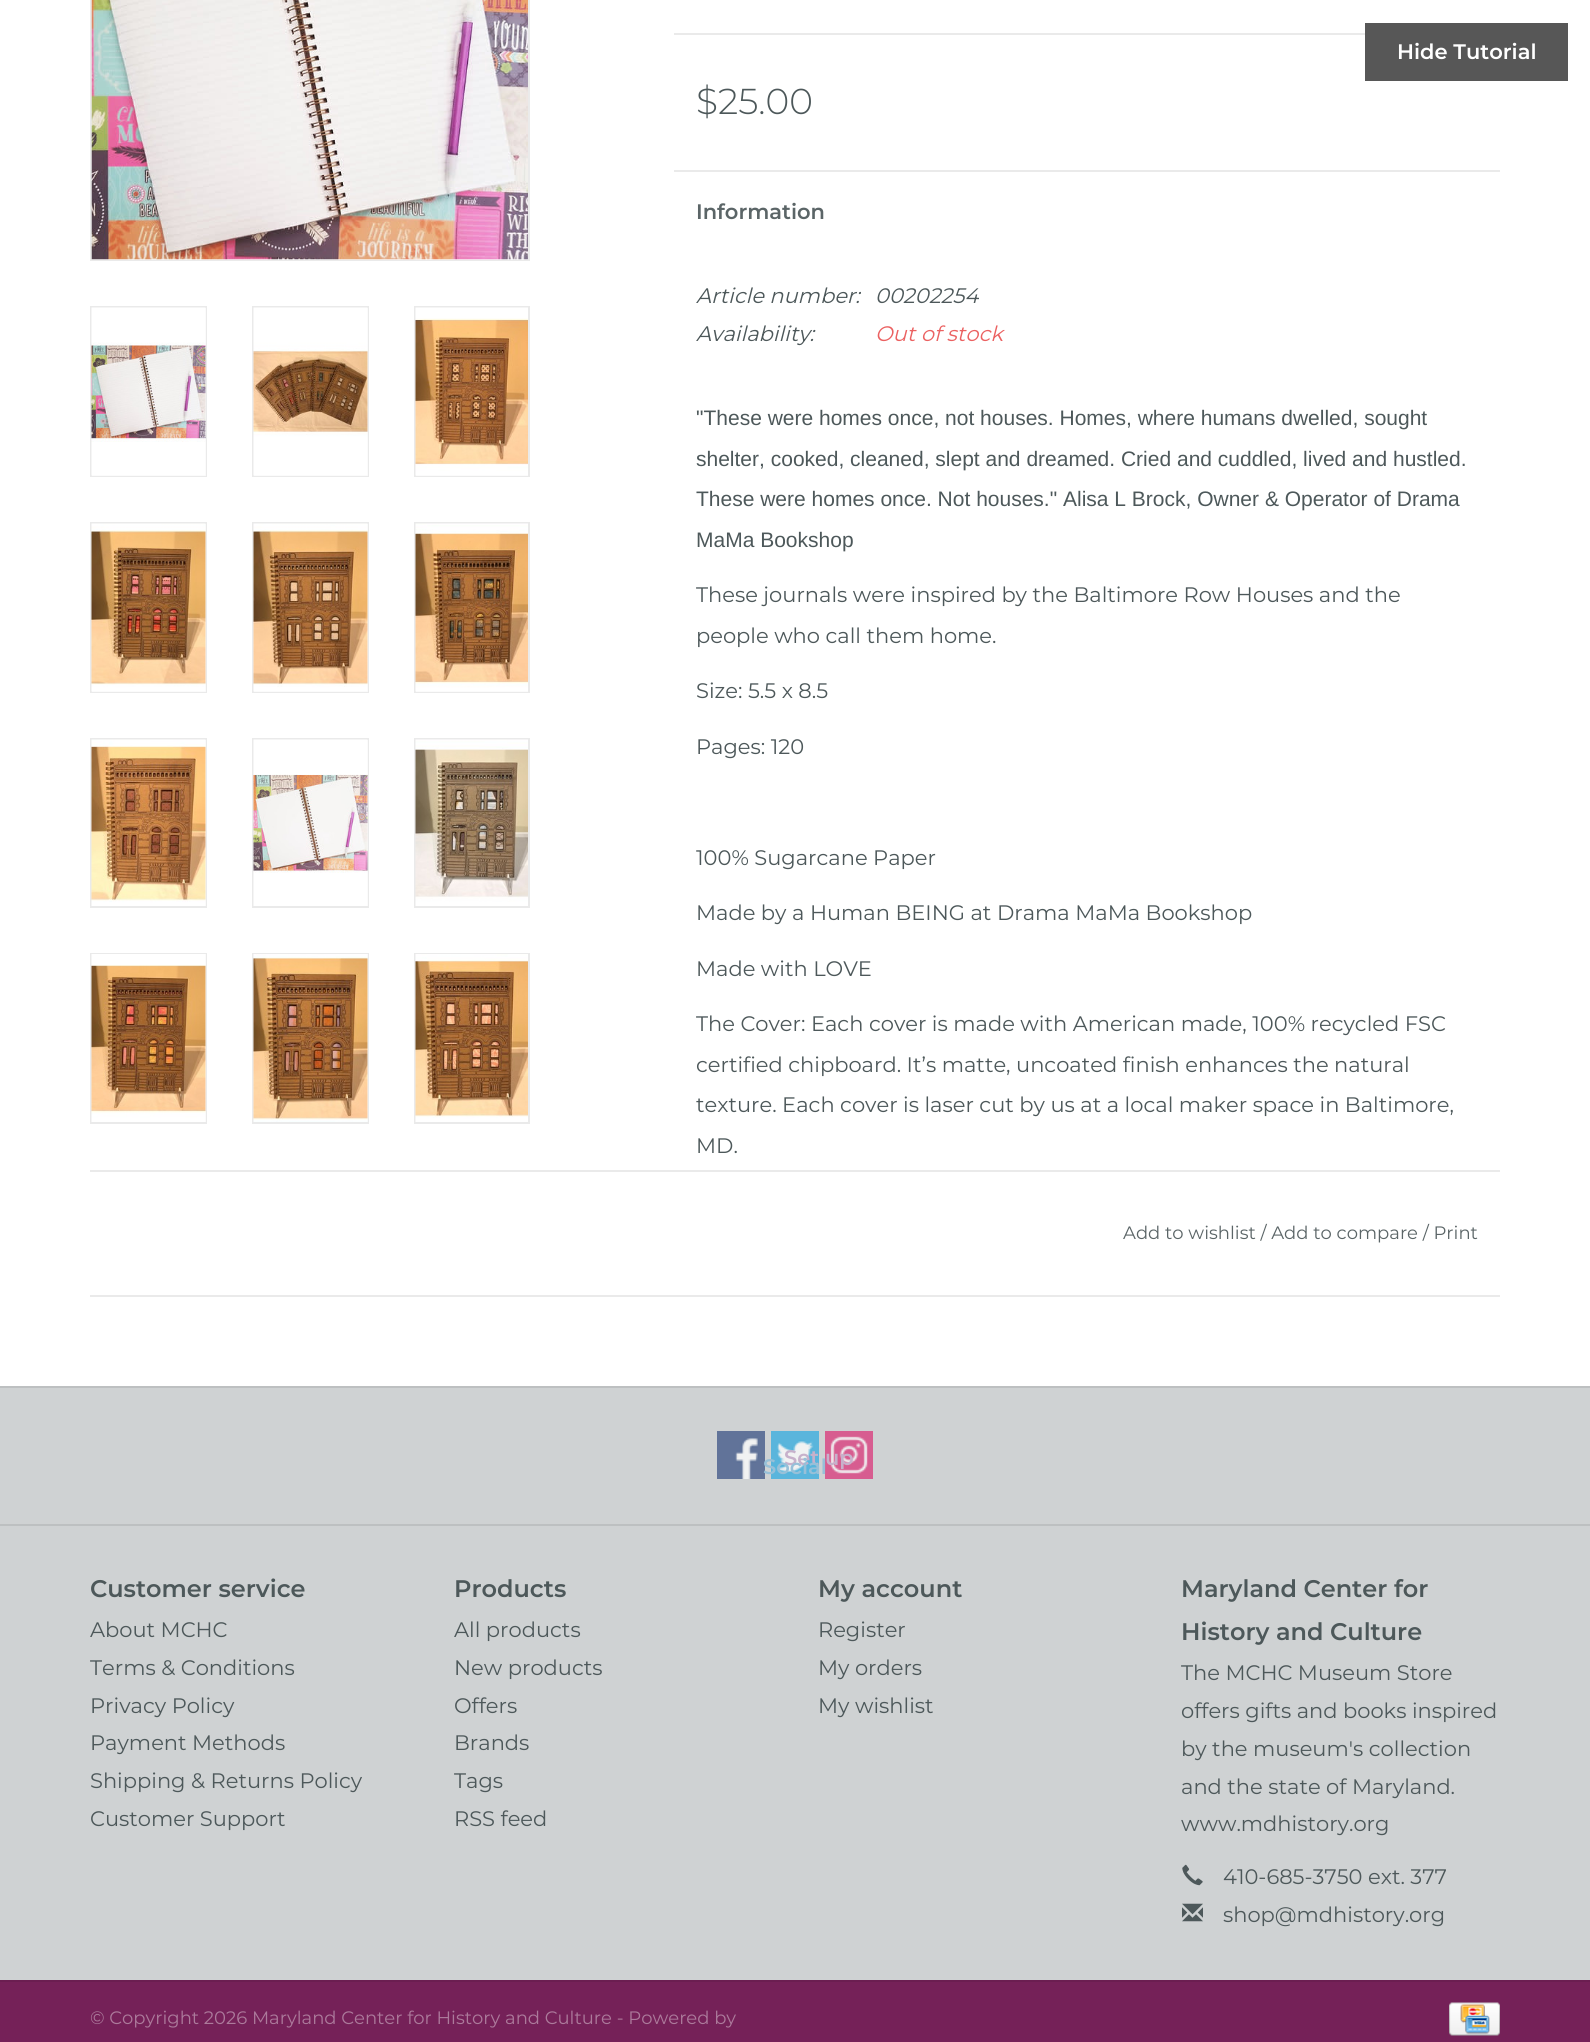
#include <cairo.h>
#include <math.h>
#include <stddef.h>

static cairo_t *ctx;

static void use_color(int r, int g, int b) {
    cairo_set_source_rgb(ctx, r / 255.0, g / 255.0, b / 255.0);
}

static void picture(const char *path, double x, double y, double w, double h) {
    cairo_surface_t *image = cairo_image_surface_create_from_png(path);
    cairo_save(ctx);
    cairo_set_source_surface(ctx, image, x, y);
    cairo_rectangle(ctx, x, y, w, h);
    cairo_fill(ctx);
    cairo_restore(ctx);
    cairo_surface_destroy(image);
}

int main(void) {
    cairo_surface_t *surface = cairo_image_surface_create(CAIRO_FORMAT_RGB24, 1590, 2042);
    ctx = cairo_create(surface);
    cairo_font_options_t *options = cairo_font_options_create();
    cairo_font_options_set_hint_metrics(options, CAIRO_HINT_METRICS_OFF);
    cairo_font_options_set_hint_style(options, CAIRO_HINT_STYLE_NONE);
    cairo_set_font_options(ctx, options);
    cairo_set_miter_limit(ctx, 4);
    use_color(255, 255, 255);
    cairo_paint(ctx);
    use_color(87, 87, 87);
    cairo_rectangle(ctx, 1365, 23, 203, 58);
    cairo_fill(ctx);
    cairo_select_font_face(ctx, "Montserrat SemiBold", CAIRO_FONT_SLANT_NORMAL, CAIRO_FONT_WEIGHT_NORMAL);
    cairo_set_font_size(ctx, 21);
    use_color(255, 255, 255);
    cairo_move_to(ctx, 1397, 59);
    cairo_show_text(ctx, "Hide Tutorial");
    cairo_rectangle(ctx, 91, -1, 438, 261);
    use_color(234, 234, 234);
    cairo_stroke(ctx);
    use_color(247, 247, 247);
    cairo_rectangle(ctx, 92, 259, 436, 1);
    cairo_fill(ctx);
    picture("img1.png", 91, 0, 437, 260);
    cairo_rectangle(ctx, 91, 307, 115, 169);
    use_color(234, 234, 234);
    cairo_stroke(ctx);
    use_color(247, 247, 247);
    cairo_rectangle(ctx, 92, 308, 114, 168);
    cairo_fill(ctx);
    picture("img2.png", 91, 307, 115, 169);
    cairo_rectangle(ctx, 253, 307, 115, 169);
    use_color(234, 234, 234);
    cairo_stroke(ctx);
    use_color(247, 247, 247);
    cairo_rectangle(ctx, 254, 308, 114, 168);
    cairo_fill(ctx);
    picture("img3.png", 253, 307, 115, 169);
    cairo_rectangle(ctx, 415, 307, 114, 169);
    use_color(234, 234, 234);
    cairo_stroke(ctx);
    use_color(247, 247, 247);
    cairo_rectangle(ctx, 416, 475, 112, 1);
    cairo_fill(ctx);
    picture("img4.png", 415, 307, 113, 169);
    cairo_rectangle(ctx, 91, 523, 115, 169);
    use_color(234, 234, 234);
    cairo_stroke(ctx);
    use_color(247, 247, 247);
    cairo_rectangle(ctx, 92, 524, 114, 168);
    cairo_fill(ctx);
    picture("img5.png", 91, 523, 115, 169);
    cairo_rectangle(ctx, 253, 523, 115, 169);
    use_color(234, 234, 234);
    cairo_stroke(ctx);
    use_color(247, 247, 247);
    cairo_rectangle(ctx, 254, 524, 114, 168);
    cairo_fill(ctx);
    picture("img6.png", 253, 523, 115, 169);
    cairo_rectangle(ctx, 415, 523, 114, 169);
    use_color(234, 234, 234);
    cairo_stroke(ctx);
    use_color(247, 247, 247);
    cairo_rectangle(ctx, 416, 691, 112, 1);
    cairo_fill(ctx);
    picture("img7.png", 415, 523, 113, 169);
    cairo_rectangle(ctx, 91, 739, 115, 168);
    use_color(234, 234, 234);
    cairo_stroke(ctx);
    use_color(247, 247, 247);
    cairo_rectangle(ctx, 205, 740, 1, 166);
    cairo_fill(ctx);
    picture("img8.png", 91, 739, 115, 167);
    cairo_rectangle(ctx, 253, 739, 115, 168);
    use_color(234, 234, 234);
    cairo_stroke(ctx);
    use_color(247, 247, 247);
    cairo_rectangle(ctx, 367, 740, 1, 166);
    cairo_fill(ctx);
    picture("img9.png", 253, 739, 115, 167);
    cairo_rectangle(ctx, 415, 739, 114, 168);
    use_color(234, 234, 234);
    cairo_stroke(ctx);
    picture("img10.png", 415, 739, 113, 167);
    cairo_rectangle(ctx, 91, 954, 115, 169);
    cairo_stroke(ctx);
    use_color(247, 247, 247);
    cairo_rectangle(ctx, 205, 954, 1, 168);
    cairo_fill(ctx);
    picture("img11.png", 91, 954, 115, 168);
    cairo_rectangle(ctx, 253, 954, 115, 169);
    use_color(234, 234, 234);
    cairo_stroke(ctx);
    use_color(247, 247, 247);
    cairo_rectangle(ctx, 367, 954, 1, 168);
    cairo_fill(ctx);
    picture("img12.png", 253, 954, 115, 168);
    cairo_rectangle(ctx, 415, 954, 114, 169);
    use_color(234, 234, 234);
    cairo_stroke(ctx);
    picture("img13.png", 415, 954, 113, 168);
    cairo_rectangle(ctx, 674, 33, 691, 2);
    cairo_fill(ctx);
    cairo_select_font_face(ctx, "Montserrat Light", CAIRO_FONT_SLANT_NORMAL, CAIRO_FONT_WEIGHT_NORMAL);
    cairo_set_font_size(ctx, 36);
    use_color(77, 88, 90);
    cairo_move_to(ctx, 696, 114);
    cairo_show_text(ctx, "$25.00");
    use_color(234, 234, 234);
    cairo_rectangle(ctx, 674, 170, 826, 2);
    cairo_fill(ctx);
    cairo_select_font_face(ctx, "Montserrat SemiBold", CAIRO_FONT_SLANT_NORMAL, CAIRO_FONT_WEIGHT_NORMAL);
    cairo_set_font_size(ctx, 21);
    use_color(91, 101, 103);
    cairo_move_to(ctx, 696, 219);
    cairo_show_text(ctx, "Information");
    cairo_select_font_face(ctx, "Montserrat", CAIRO_FONT_SLANT_ITALIC, CAIRO_FONT_WEIGHT_NORMAL);
    use_color(77, 88, 90);
    cairo_move_to(ctx, 696, 303);
    cairo_show_text(ctx, "Article number:");
    cairo_move_to(ctx, 875, 303);
    cairo_show_text(ctx, "00202254");
    cairo_move_to(ctx, 696, 341);
    cairo_show_text(ctx, "Availability:");
    use_color(235, 97, 97);
    cairo_move_to(ctx, 875, 341);
    cairo_show_text(ctx, "Out of stock");
    cairo_select_font_face(ctx, "Liberation Sans", CAIRO_FONT_SLANT_NORMAL, CAIRO_FONT_WEIGHT_NORMAL);
    use_color(77, 88, 90);
    cairo_move_to(ctx, 696, 425);
    cairo_show_text(ctx, "\"These were homes once, not houses. Homes, where humans dwelled, sought");
    cairo_move_to(ctx, 696, 466);
    cairo_show_text(ctx, "shelter, cooked, cleaned, slept and dreamed. Cried and cuddled, lived and hustled.");
    cairo_move_to(ctx, 696, 506);
    cairo_show_text(ctx, "These were homes once. Not houses.\" Alisa L Brock, Owner & Operator of Drama");
    cairo_move_to(ctx, 696, 547);
    cairo_show_text(ctx, "MaMa Bookshop");
    cairo_select_font_face(ctx, "Montserrat", CAIRO_FONT_SLANT_NORMAL, CAIRO_FONT_WEIGHT_NORMAL);
    cairo_move_to(ctx, 696, 602);
    cairo_show_text(ctx, "These journals were inspired by the Baltimore Row Houses and the");
    cairo_move_to(ctx, 696, 643);
    cairo_show_text(ctx, "people who call them home.");
    cairo_move_to(ctx, 696, 698);
    cairo_show_text(ctx, "Size: 5.5 x 8.5");
    cairo_move_to(ctx, 696, 754);
    cairo_show_text(ctx, "Pages: 120");
    cairo_move_to(ctx, 696, 865);
    cairo_show_text(ctx, "100% Sugarcane Paper");
    cairo_move_to(ctx, 696, 920);
    cairo_show_text(ctx, "Made by a Human BEING at Drama MaMa Bookshop");
    cairo_move_to(ctx, 696, 976);
    cairo_show_text(ctx, "Made with LOVE");
    cairo_move_to(ctx, 696, 1031);
    cairo_show_text(ctx, "The Cover: Each cover is made with American made, 100% recycled FSC");
    cairo_move_to(ctx, 696, 1072);
    cairo_show_text(ctx, "certified chipboard. It’s matte, uncoated finish enhances the natural");
    cairo_move_to(ctx, 696, 1112);
    cairo_show_text(ctx, "texture. Each cover is laser cut by us at a local maker space in Baltimore,");
    cairo_move_to(ctx, 696, 1153);
    cairo_show_text(ctx, "MD.");
    use_color(234, 234, 234);
    cairo_rectangle(ctx, 90, 1170, 1410, 2);
    cairo_fill(ctx);
    cairo_rectangle(ctx, 90, 1295, 1410, 2);
    cairo_fill(ctx);
    cairo_set_font_size(ctx, 18);
    use_color(91, 101, 103);
    cairo_move_to(ctx, 1123, 1239);
    cairo_show_text(ctx, "Add to wishlist / Add to compare / Print");
    use_color(207, 210, 211);
    cairo_rectangle(ctx, 0, 1388, 1590, 592);
    cairo_fill(ctx);
    use_color(189, 192, 193);
    cairo_rectangle(ctx, 0, 1386, 1590, 2);
    cairo_fill(ctx);
    picture("img14.png", 717, 1431, 48, 48);
    picture("img15.png", 771, 1431, 48, 48);
    picture("img16.png", 825, 1431, 48, 48);
    cairo_select_font_face(ctx, "Montserrat SemiBold", CAIRO_FONT_SLANT_NORMAL, CAIRO_FONT_WEIGHT_NORMAL);
    cairo_set_font_size(ctx, 21);
    use_color(199, 177, 203);
    cairo_move_to(ctx, 784, 1465);
    cairo_show_text(ctx, "Set up");
    use_color(151, 192, 216);
    cairo_move_to(ctx, 763, 1474);
    cairo_show_text(ctx, "Social");
    use_color(189, 192, 193);
    cairo_rectangle(ctx, 0, 1524, 1590, 2);
    cairo_fill(ctx);
    cairo_set_font_size(ctx, 24);
    use_color(77, 88, 90);
    cairo_move_to(ctx, 90, 1597);
    cairo_show_text(ctx, "Customer service");
    cairo_select_font_face(ctx, "Montserrat", CAIRO_FONT_SLANT_NORMAL, CAIRO_FONT_WEIGHT_NORMAL);
    cairo_set_font_size(ctx, 21);
    cairo_move_to(ctx, 90, 1637);
    cairo_show_text(ctx, "About MCHC");
    cairo_move_to(ctx, 90, 1675);
    cairo_show_text(ctx, "Terms & Conditions");
    cairo_move_to(ctx, 90, 1713);
    cairo_show_text(ctx, "Privacy Policy");
    cairo_move_to(ctx, 90, 1750);
    cairo_show_text(ctx, "Payment Methods");
    cairo_move_to(ctx, 90, 1788);
    cairo_show_text(ctx, "Shipping & Returns Policy");
    cairo_move_to(ctx, 90, 1826);
    cairo_show_text(ctx, "Customer Support");
    cairo_select_font_face(ctx, "Montserrat SemiBold", CAIRO_FONT_SLANT_NORMAL, CAIRO_FONT_WEIGHT_NORMAL);
    cairo_set_font_size(ctx, 24);
    cairo_move_to(ctx, 454, 1597);
    cairo_show_text(ctx, "Products");
    cairo_select_font_face(ctx, "Montserrat", CAIRO_FONT_SLANT_NORMAL, CAIRO_FONT_WEIGHT_NORMAL);
    cairo_set_font_size(ctx, 21);
    cairo_move_to(ctx, 454, 1637);
    cairo_show_text(ctx, "All products");
    cairo_move_to(ctx, 454, 1675);
    cairo_show_text(ctx, "New products");
    cairo_move_to(ctx, 454, 1713);
    cairo_show_text(ctx, "Offers");
    cairo_move_to(ctx, 454, 1750);
    cairo_show_text(ctx, "Brands");
    cairo_move_to(ctx, 454, 1788);
    cairo_show_text(ctx, "Tags");
    cairo_move_to(ctx, 454, 1826);
    cairo_show_text(ctx, "RSS feed");
    cairo_select_font_face(ctx, "Montserrat SemiBold", CAIRO_FONT_SLANT_NORMAL, CAIRO_FONT_WEIGHT_NORMAL);
    cairo_set_font_size(ctx, 24);
    cairo_move_to(ctx, 818, 1597);
    cairo_show_text(ctx, "My account");
    cairo_select_font_face(ctx, "Montserrat", CAIRO_FONT_SLANT_NORMAL, CAIRO_FONT_WEIGHT_NORMAL);
    cairo_set_font_size(ctx, 21);
    cairo_move_to(ctx, 818, 1637);
    cairo_show_text(ctx, "Register");
    cairo_move_to(ctx, 818, 1675);
    cairo_show_text(ctx, "My orders");
    cairo_move_to(ctx, 818, 1713);
    cairo_show_text(ctx, "My wishlist");
    cairo_select_font_face(ctx, "Montserrat SemiBold", CAIRO_FONT_SLANT_NORMAL, CAIRO_FONT_WEIGHT_NORMAL);
    cairo_set_font_size(ctx, 24);
    cairo_move_to(ctx, 1181, 1597);
    cairo_show_text(ctx, "Maryland Center for");
    cairo_move_to(ctx, 1181, 1640);
    cairo_show_text(ctx, "History and Culture");
    cairo_select_font_face(ctx, "Montserrat", CAIRO_FONT_SLANT_NORMAL, CAIRO_FONT_WEIGHT_NORMAL);
    cairo_set_font_size(ctx, 21);
    cairo_move_to(ctx, 1181, 1680);
    cairo_show_text(ctx, "The MCHC Museum Store");
    cairo_move_to(ctx, 1181, 1718);
    cairo_show_text(ctx, "offers gifts and books inspired");
    cairo_move_to(ctx, 1181, 1756);
    cairo_show_text(ctx, "by the museum's collection");
    cairo_move_to(ctx, 1181, 1794);
    cairo_show_text(ctx, "and the state of Maryland.");
    cairo_move_to(ctx, 1181, 1831);
    cairo_show_text(ctx, "www.mdhistory.org");
    picture("img17.png", 1182, 1864, 21, 22);
    cairo_move_to(ctx, 1223, 1884);
    cairo_show_text(ctx, "410-685-3750 ext. 377");
    picture("img18.png", 1182, 1903, 21, 19);
    cairo_move_to(ctx, 1223, 1922);
    cairo_show_text(ctx, "shop@mdhistory.org");
    use_color(107, 30, 81);
    cairo_rectangle(ctx, 0, 1980, 1590, 2);
    cairo_fill(ctx);
    use_color(117, 33, 88);
    cairo_rectangle(ctx, 0, 1982, 1590, 60);
    cairo_fill(ctx);
    cairo_set_font_size(ctx, 18);
    use_color(172, 122, 155);
    cairo_move_to(ctx, 90, 2024);
    cairo_show_text(ctx, "© Copyright 2026 Maryland Center for History and Culture - Powered by");
    picture("img19.png", 1449, 2002, 51, 34);
    cairo_surface_write_to_png(surface, "result.png");
    cairo_font_options_destroy(options);
    cairo_destroy(ctx);
    cairo_surface_destroy(surface);
    return 0;
}
